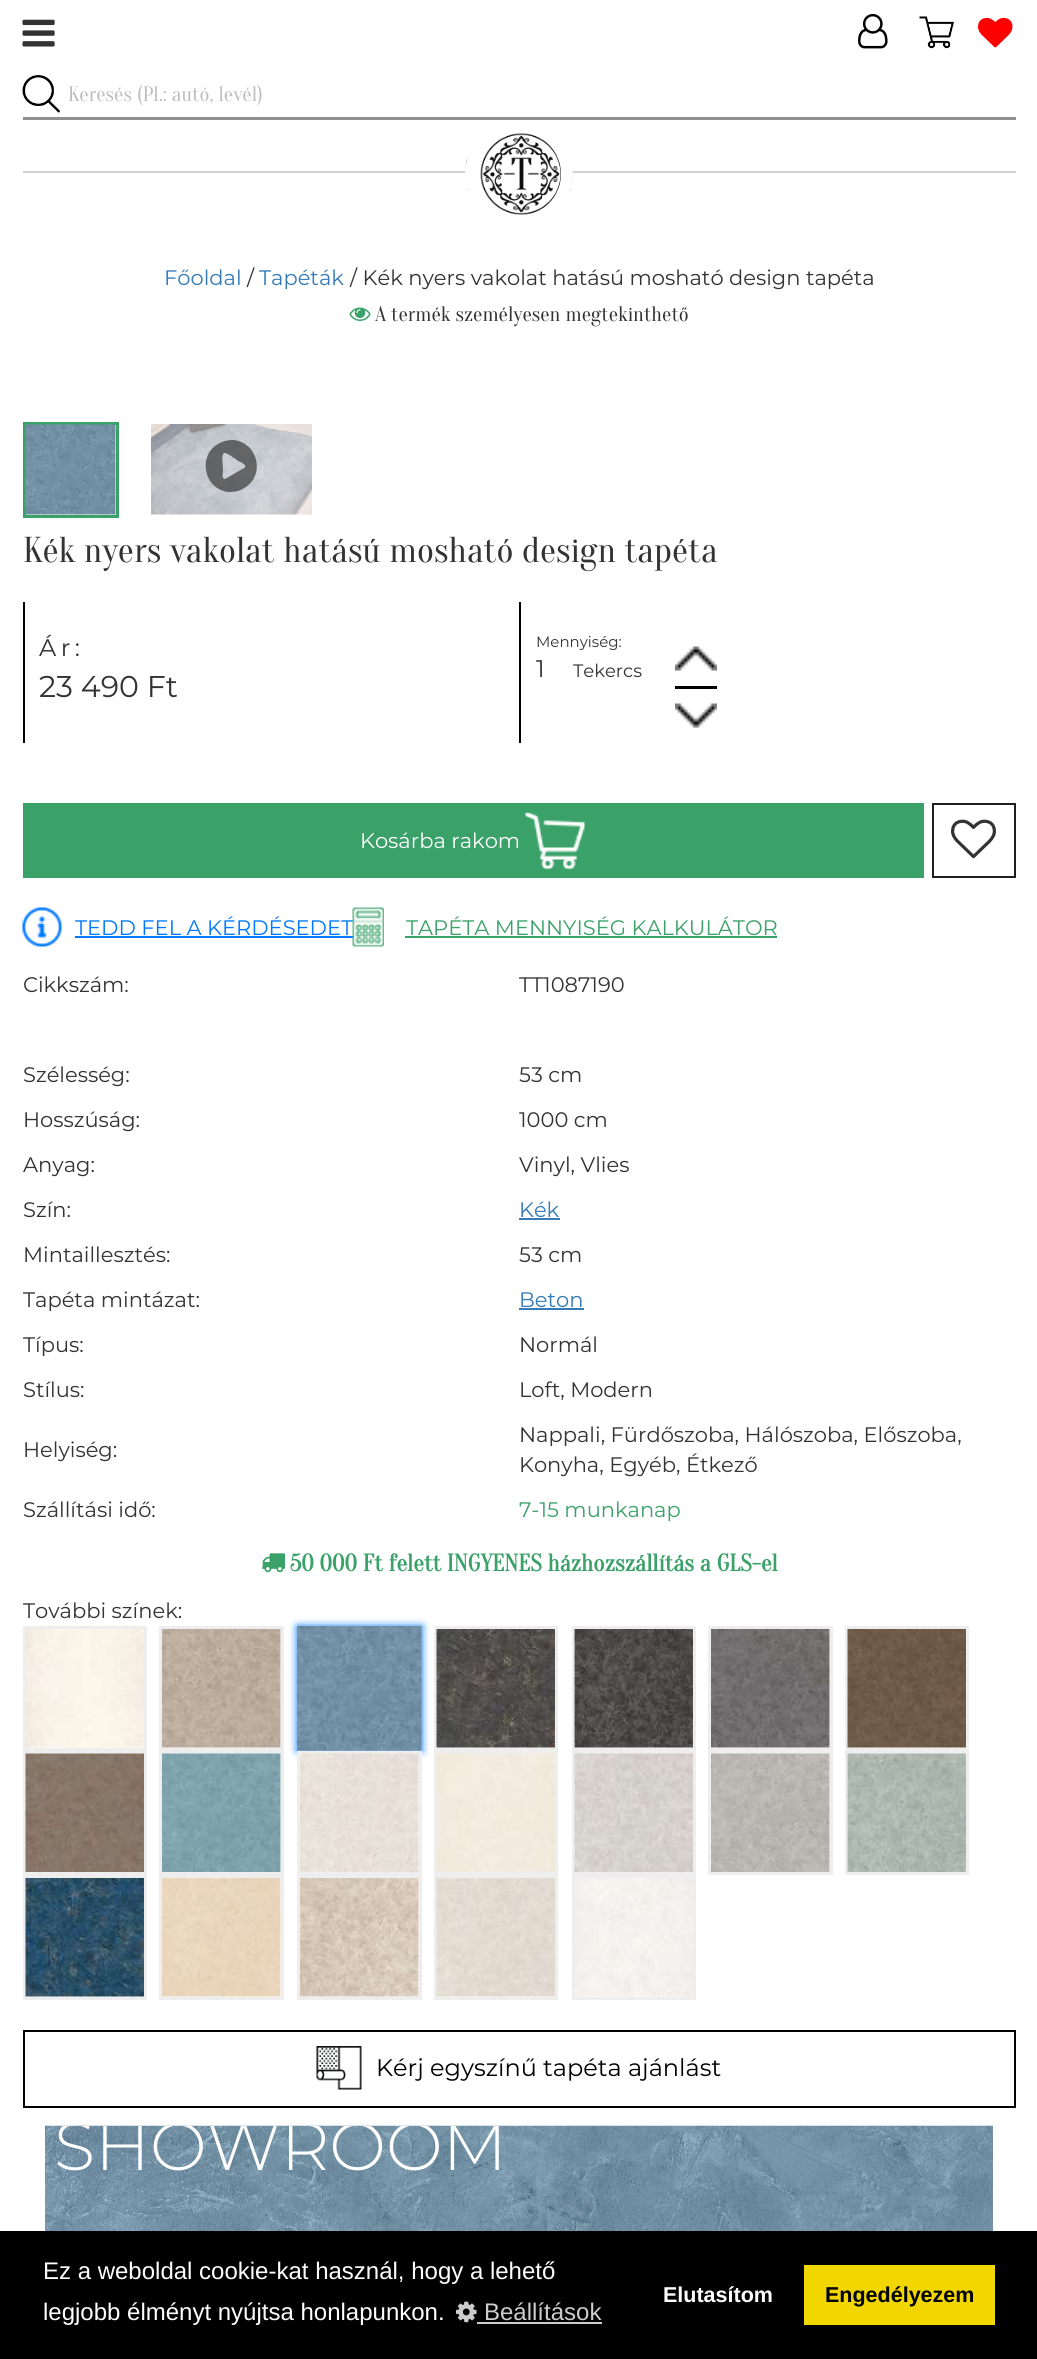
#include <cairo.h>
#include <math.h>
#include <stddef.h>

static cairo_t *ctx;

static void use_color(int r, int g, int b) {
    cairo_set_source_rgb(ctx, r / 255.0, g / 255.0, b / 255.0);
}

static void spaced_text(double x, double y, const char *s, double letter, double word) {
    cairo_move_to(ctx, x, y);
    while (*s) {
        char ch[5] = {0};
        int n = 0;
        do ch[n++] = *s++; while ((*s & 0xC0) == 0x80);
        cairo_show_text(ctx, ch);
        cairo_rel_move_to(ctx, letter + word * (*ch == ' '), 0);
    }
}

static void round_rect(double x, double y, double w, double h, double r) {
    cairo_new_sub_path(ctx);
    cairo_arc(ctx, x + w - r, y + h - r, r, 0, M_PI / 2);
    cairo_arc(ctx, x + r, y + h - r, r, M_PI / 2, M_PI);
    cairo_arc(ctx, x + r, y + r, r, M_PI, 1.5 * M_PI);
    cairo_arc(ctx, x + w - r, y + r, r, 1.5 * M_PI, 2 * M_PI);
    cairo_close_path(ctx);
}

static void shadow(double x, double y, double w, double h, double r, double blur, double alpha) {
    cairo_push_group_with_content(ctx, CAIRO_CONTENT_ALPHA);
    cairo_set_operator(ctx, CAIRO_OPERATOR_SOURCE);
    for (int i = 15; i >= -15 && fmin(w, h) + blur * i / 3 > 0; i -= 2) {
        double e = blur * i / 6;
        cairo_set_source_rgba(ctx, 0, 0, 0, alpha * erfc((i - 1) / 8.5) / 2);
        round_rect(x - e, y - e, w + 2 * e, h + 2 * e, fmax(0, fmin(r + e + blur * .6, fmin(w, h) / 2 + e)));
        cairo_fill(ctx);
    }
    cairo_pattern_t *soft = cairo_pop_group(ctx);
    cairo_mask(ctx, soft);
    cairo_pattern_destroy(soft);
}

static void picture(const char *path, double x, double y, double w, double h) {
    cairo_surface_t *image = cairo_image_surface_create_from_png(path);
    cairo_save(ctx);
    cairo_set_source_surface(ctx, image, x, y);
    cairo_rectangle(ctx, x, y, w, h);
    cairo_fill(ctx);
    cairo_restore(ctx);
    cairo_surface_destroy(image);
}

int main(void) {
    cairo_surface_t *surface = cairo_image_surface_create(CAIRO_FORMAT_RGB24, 1037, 2359);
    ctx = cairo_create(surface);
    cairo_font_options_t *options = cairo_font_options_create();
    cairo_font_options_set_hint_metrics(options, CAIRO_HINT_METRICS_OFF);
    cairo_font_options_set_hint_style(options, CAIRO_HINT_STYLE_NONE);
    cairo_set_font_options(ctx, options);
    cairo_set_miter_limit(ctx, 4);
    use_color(255, 255, 255);
    cairo_paint(ctx);
    picture("img1.png", 22, 19, 33, 28);
    picture("img2.png", 858, 13, 30, 36);
    picture("img3.png", 919, 16, 35, 33);
    picture("img4.png", 978, 17, 35, 31);
    use_color(143, 143, 143);
    cairo_rectangle(ctx, 23, 117, 993, 3);
    cairo_fill(ctx);
    picture("img5.png", 22, 75, 38, 38);
    cairo_select_font_face(ctx, "Oranienbaum", CAIRO_FONT_SLANT_NORMAL, CAIRO_FONT_WEIGHT_NORMAL);
    cairo_set_font_size(ctx, 21);
    use_color(188, 188, 188);
    cairo_move_to(ctx, 68, 101);
    cairo_show_text(ctx, "Keresés (Pl.: autó, levél)");
    use_color(211, 211, 211);
    cairo_rectangle(ctx, 23, 171, 993, 2);
    cairo_fill(ctx);
    use_color(255, 255, 255);
    cairo_arc(ctx, 519, 174, 54, 0, 2 * M_PI);
    cairo_fill(ctx);
    picture("img6.png", 465, 133, 108, 82);
    cairo_arc(ctx, 519, 174, 48, 0, 2 * M_PI);
    cairo_set_line_width(ctx, 12);
    cairo_stroke(ctx);
    cairo_select_font_face(ctx, "Montserrat", CAIRO_FONT_SLANT_NORMAL, CAIRO_FONT_WEIGHT_NORMAL);
    use_color(51, 122, 183);
    cairo_move_to(ctx, 164, 285);
    cairo_show_text(ctx, "Főoldal");
    use_color(51, 51, 51);
    cairo_move_to(ctx, 247, 285);
    cairo_show_text(ctx, "/");
    use_color(51, 122, 183);
    cairo_move_to(ctx, 259, 285);
    cairo_show_text(ctx, "Tapéták");
    use_color(51, 51, 51);
    cairo_move_to(ctx, 350, 285);
    cairo_show_text(ctx, "/ Kék nyers vakolat hatású mosható design tapéta");
    picture("img7.png", 349, 307, 22, 14);
    cairo_select_font_face(ctx, "Oranienbaum", CAIRO_FONT_SLANT_NORMAL, CAIRO_FONT_WEIGHT_NORMAL);
    cairo_move_to(ctx, 375, 321);
    cairo_show_text(ctx, "A termék személyesen megtekinthető");
    cairo_rectangle(ctx, 24.5, 423.5, 93, 93);
    use_color(58, 161, 104);
    cairo_set_line_width(ctx, 3);
    cairo_stroke(ctx);
    picture("img8.png", 25, 424, 91, 91);
    picture("img9.png", 151, 424, 161, 91);
    cairo_set_source_rgba(ctx, 0.122, 0.122, 0.122, 0.6);
    cairo_new_path(ctx);
    cairo_move_to(ctx, 218, 444);
    cairo_curve_to(ctx, 223, 441, 228, 440, 233, 440);
    cairo_curve_to(ctx, 258, 442, 266, 476, 244, 488);
    cairo_curve_to(ctx, 240, 491, 235, 492, 229, 492);
    cairo_curve_to(ctx, 204, 490, 197, 456, 218, 444);
    cairo_close_path(ctx);
    cairo_move_to(ctx, 244, 468);
    cairo_curve_to(ctx, 249, 465, 238, 461, 238, 461);
    cairo_curve_to(ctx, 236, 459, 226, 452, 224, 453);
    cairo_curve_to(ctx, 221, 455, 223, 467, 223, 470);
    cairo_curve_to(ctx, 223, 471, 221, 479, 225, 479);
    cairo_close_path(ctx);
    cairo_fill(ctx);
    cairo_set_font_size(ctx, 36);
    use_color(51, 51, 51);
    cairo_move_to(ctx, 23, 562);
    cairo_show_text(ctx, "Kék nyers vakolat hatású mosható design tapéta");
    use_color(0, 0, 0);
    cairo_rectangle(ctx, 23, 602, 2, 141);
    cairo_fill(ctx);
    cairo_select_font_face(ctx, "Montserrat", CAIRO_FONT_SLANT_NORMAL, CAIRO_FONT_WEIGHT_NORMAL);
    cairo_set_font_size(ctx, 24);
    use_color(51, 51, 51);
    spaced_text(39, 656, "Ár:", 4.5, 0);
    cairo_set_font_size(ctx, 30);
    cairo_move_to(ctx, 39, 697);
    cairo_show_text(ctx, "23 490 Ft");
    use_color(0, 0, 0);
    cairo_rectangle(ctx, 519, 602, 2, 141);
    cairo_fill(ctx);
    cairo_set_font_size(ctx, 15);
    use_color(51, 51, 51);
    cairo_move_to(ctx, 536, 647);
    cairo_show_text(ctx, "Mennyiség:");
    cairo_set_font_size(ctx, 24);
    cairo_move_to(ctx, 536, 677);
    cairo_show_text(ctx, "1");
    cairo_set_font_size(ctx, 18);
    cairo_move_to(ctx, 573, 677);
    cairo_show_text(ctx, "Tekercs");
    picture("img10.png", 675, 646, 42, 25);
    use_color(0, 0, 0);
    cairo_rectangle(ctx, 675, 686, 42, 3);
    cairo_fill(ctx);
    picture("img11.png", 675, 703, 42, 25);
    use_color(58, 161, 104);
    cairo_rectangle(ctx, 23, 803, 901, 75);
    cairo_fill(ctx);
    cairo_set_font_size(ctx, 21);
    use_color(255, 255, 255);
    cairo_move_to(ctx, 360, 848);
    cairo_show_text(ctx, "Kosárba rakom");
    picture("img12.png", 525, 811, 60, 59);
    cairo_rectangle(ctx, 933, 804, 82, 73);
    use_color(31, 31, 31);
    cairo_set_line_width(ctx, 2);
    cairo_stroke(ctx);
    picture("img13.png", 951, 819, 45, 40);
    picture("img14.png", 22, 907, 40, 40);
    use_color(0, 120, 255);
    cairo_move_to(ctx, 75, 935);
    cairo_show_text(ctx, "TEDD FEL A KÉRDÉSEDET");
    cairo_rectangle(ctx, 75, 936, 278, 2);
    cairo_fill(ctx);
    picture("img15.png", 352, 907, 32, 40);
    use_color(58, 161, 104);
    cairo_move_to(ctx, 406, 935);
    cairo_show_text(ctx, "TAPÉTA MENNYISÉG KALKULÁTOR");
    cairo_rectangle(ctx, 405, 936, 372, 2);
    cairo_fill(ctx);
    use_color(51, 51, 51);
    cairo_move_to(ctx, 23, 992);
    cairo_show_text(ctx, "Cikkszám:");
    cairo_move_to(ctx, 519, 992);
    cairo_show_text(ctx, "TT1087190");
    cairo_move_to(ctx, 23, 1082);
    cairo_show_text(ctx, "Szélesség:");
    cairo_move_to(ctx, 519, 1082);
    cairo_show_text(ctx, "53 cm");
    cairo_move_to(ctx, 23, 1127);
    cairo_show_text(ctx, "Hosszúság:");
    cairo_move_to(ctx, 519, 1127);
    cairo_show_text(ctx, "1000 cm");
    cairo_move_to(ctx, 23, 1172);
    cairo_show_text(ctx, "Anyag:");
    cairo_move_to(ctx, 519, 1172);
    cairo_show_text(ctx, "Vinyl, Vlies");
    cairo_move_to(ctx, 23, 1217);
    cairo_show_text(ctx, "Szín:");
    use_color(51, 122, 183);
    cairo_move_to(ctx, 519, 1217);
    cairo_show_text(ctx, "Kék");
    cairo_rectangle(ctx, 519, 1218, 41, 2);
    cairo_fill(ctx);
    use_color(51, 51, 51);
    cairo_move_to(ctx, 23, 1262);
    cairo_show_text(ctx, "Mintaillesztés:");
    cairo_move_to(ctx, 519, 1262);
    cairo_show_text(ctx, "53 cm");
    cairo_move_to(ctx, 23, 1307);
    cairo_show_text(ctx, "Tapéta mintázat:");
    use_color(51, 122, 183);
    cairo_move_to(ctx, 519, 1307);
    cairo_show_text(ctx, "Beton");
    cairo_rectangle(ctx, 519, 1308, 65, 2);
    cairo_fill(ctx);
    use_color(51, 51, 51);
    cairo_move_to(ctx, 23, 1352);
    cairo_show_text(ctx, "Típus:");
    cairo_move_to(ctx, 519, 1352);
    cairo_show_text(ctx, "Normál");
    cairo_move_to(ctx, 23, 1397);
    cairo_show_text(ctx, "Stílus:");
    cairo_move_to(ctx, 519, 1397);
    cairo_show_text(ctx, "Loft, Modern");
    cairo_move_to(ctx, 23, 1457);
    cairo_show_text(ctx, "Helyiség:");
    cairo_move_to(ctx, 519, 1442);
    cairo_show_text(ctx, "Nappali, Fürdőszoba, Hálószoba, Előszoba,");
    cairo_move_to(ctx, 519, 1472);
    cairo_show_text(ctx, "Konyha, Egyéb, Étkező");
    cairo_move_to(ctx, 23, 1517);
    cairo_show_text(ctx, "Szállítási idő:");
    use_color(58, 161, 104);
    cairo_move_to(ctx, 519, 1517);
    cairo_show_text(ctx, "7-15 munkanap");
    picture("img16.png", 261, 1553, 24, 20);
    cairo_select_font_face(ctx, "Oranienbaum", CAIRO_FONT_SLANT_NORMAL, CAIRO_FONT_WEIGHT_BOLD);
    cairo_set_font_size(ctx, 24);
    cairo_move_to(ctx, 290, 1571);
    cairo_show_text(ctx, "50 000 Ft felett INGYENES házhozszállítás a GLS-el");
    cairo_select_font_face(ctx, "Montserrat", CAIRO_FONT_SLANT_NORMAL, CAIRO_FONT_WEIGHT_NORMAL);
    cairo_set_font_size(ctx, 21);
    use_color(51, 51, 51);
    cairo_move_to(ctx, 23, 1618);
    cairo_show_text(ctx, "További színek:");
    cairo_rectangle(ctx, 24.5, 1627.5, 121, 122);
    use_color(238, 238, 238);
    cairo_set_line_width(ctx, 3);
    cairo_stroke(ctx);
    cairo_rectangle(ctx, 160.5, 1627.5, 122, 122);
    cairo_stroke(ctx);
    use_color(0, 120, 255);
    shadow(297, 1626, 125, 125, 0, 4, 1);
    picture("img17.png", 25, 1629, 119, 119);
    picture("img18.png", 162, 1629, 119, 119);
    picture("img19.png", 297, 1626, 125, 125);
    cairo_rectangle(ctx, 435.5, 1627.5, 121, 122);
    use_color(238, 238, 238);
    cairo_stroke(ctx);
    cairo_rectangle(ctx, 573.5, 1627.5, 121, 122);
    cairo_stroke(ctx);
    cairo_rectangle(ctx, 709.5, 1627.5, 122, 122);
    cairo_stroke(ctx);
    cairo_rectangle(ctx, 846.5, 1627.5, 121, 122);
    cairo_stroke(ctx);
    picture("img20.png", 436, 1629, 119, 119);
    picture("img21.png", 574, 1629, 119, 119);
    picture("img22.png", 711, 1629, 119, 119);
    picture("img23.png", 847, 1629, 119, 119);
    cairo_rectangle(ctx, 24.5, 1752.5, 121, 121);
    cairo_stroke(ctx);
    cairo_rectangle(ctx, 160.5, 1752.5, 122, 121);
    cairo_stroke(ctx);
    cairo_rectangle(ctx, 298.5, 1752.5, 122, 121);
    cairo_stroke(ctx);
    cairo_rectangle(ctx, 435.5, 1752.5, 121, 121);
    cairo_stroke(ctx);
    cairo_rectangle(ctx, 573.5, 1752.5, 121, 121);
    cairo_stroke(ctx);
    cairo_rectangle(ctx, 709.5, 1752.5, 122, 121);
    cairo_stroke(ctx);
    cairo_rectangle(ctx, 846.5, 1752.5, 121, 121);
    cairo_stroke(ctx);
    picture("img24.png", 25, 1753, 119, 119);
    picture("img25.png", 162, 1753, 119, 119);
    picture("img26.png", 300, 1753, 119, 119);
    picture("img27.png", 436, 1753, 119, 119);
    picture("img28.png", 574, 1753, 119, 119);
    picture("img29.png", 711, 1753, 119, 119);
    picture("img30.png", 847, 1753, 119, 119);
    cairo_rectangle(ctx, 24.5, 1876.5, 121, 122);
    cairo_stroke(ctx);
    cairo_rectangle(ctx, 160.5, 1876.5, 122, 122);
    cairo_stroke(ctx);
    cairo_rectangle(ctx, 298.5, 1876.5, 122, 122);
    cairo_stroke(ctx);
    cairo_rectangle(ctx, 435.5, 1876.5, 121, 122);
    cairo_stroke(ctx);
    cairo_rectangle(ctx, 573.5, 1876.5, 121, 122);
    cairo_stroke(ctx);
    picture("img31.png", 25, 1878, 119, 119);
    picture("img32.png", 162, 1878, 119, 119);
    picture("img33.png", 300, 1878, 119, 119);
    picture("img34.png", 436, 1878, 119, 119);
    picture("img35.png", 574, 1878, 119, 119);
    cairo_rectangle(ctx, 24, 2031, 991, 76);
    use_color(0, 0, 0);
    cairo_set_line_width(ctx, 2);
    cairo_stroke(ctx);
    picture("img36.png", 316, 2046, 46, 44);
    cairo_set_font_size(ctx, 24);
    cairo_move_to(ctx, 376, 2076);
    cairo_show_text(ctx, "Kérj egyszínű tapéta ajánlást");
    picture("img37.png", 45, 2125, 948, 106);
    cairo_save(ctx);
    cairo_rectangle(ctx, 45, 2126, 948, 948);
    cairo_clip(ctx);
    cairo_select_font_face(ctx, "Montserrat Light", CAIRO_FONT_SLANT_NORMAL, CAIRO_FONT_WEIGHT_NORMAL);
    cairo_set_font_size(ctx, 67.5);
    use_color(255, 255, 255);
    cairo_move_to(ctx, 54, 2170);
    cairo_show_text(ctx, "SHOWROOM");
    cairo_restore(ctx);
    cairo_rectangle(ctx, 0, 2231, 1037, 128);
    cairo_fill(ctx);
    cairo_select_font_face(ctx, "Liberation Sans", CAIRO_FONT_SLANT_NORMAL, CAIRO_FONT_WEIGHT_NORMAL);
    use_color(255, 255, 255);
    cairo_move_to(ctx, 43, 2279);
    cairo_show_text(ctx, "Ez a weboldal cookie-kat használ, hogy a lehető");
    cairo_move_to(ctx, 43, 2320);
    cairo_show_text(ctx, "legjobb élményt nyújtsa honlapunkon.");
    picture("img38.png", 456, 2301, 21, 22);
    use_color(204, 204, 204);
    cairo_move_to(ctx, 484, 2320);
    cairo_show_text(ctx, "Beállítások");
    cairo_rectangle(ctx, 477, 2322, 125, 2);
    cairo_fill(ctx);
    cairo_select_font_face(ctx, "Liberation Sans", CAIRO_FONT_SLANT_NORMAL, CAIRO_FONT_WEIGHT_BOLD);
    cairo_set_font_size(ctx, 21.5);
    use_color(255, 255, 255);
    cairo_move_to(ctx, 663, 2302);
    cairo_show_text(ctx, "Elutasítom");
    use_color(241, 214, 0);
    cairo_rectangle(ctx, 804, 2265, 191, 60);
    cairo_fill(ctx);
    use_color(0, 0, 0);
    cairo_move_to(ctx, 825, 2302);
    cairo_show_text(ctx, "Engedélyezem");
    cairo_surface_write_to_png(surface, "result.png");
    cairo_font_options_destroy(options);
    cairo_destroy(ctx);
    cairo_surface_destroy(surface);
    return 0;
}
